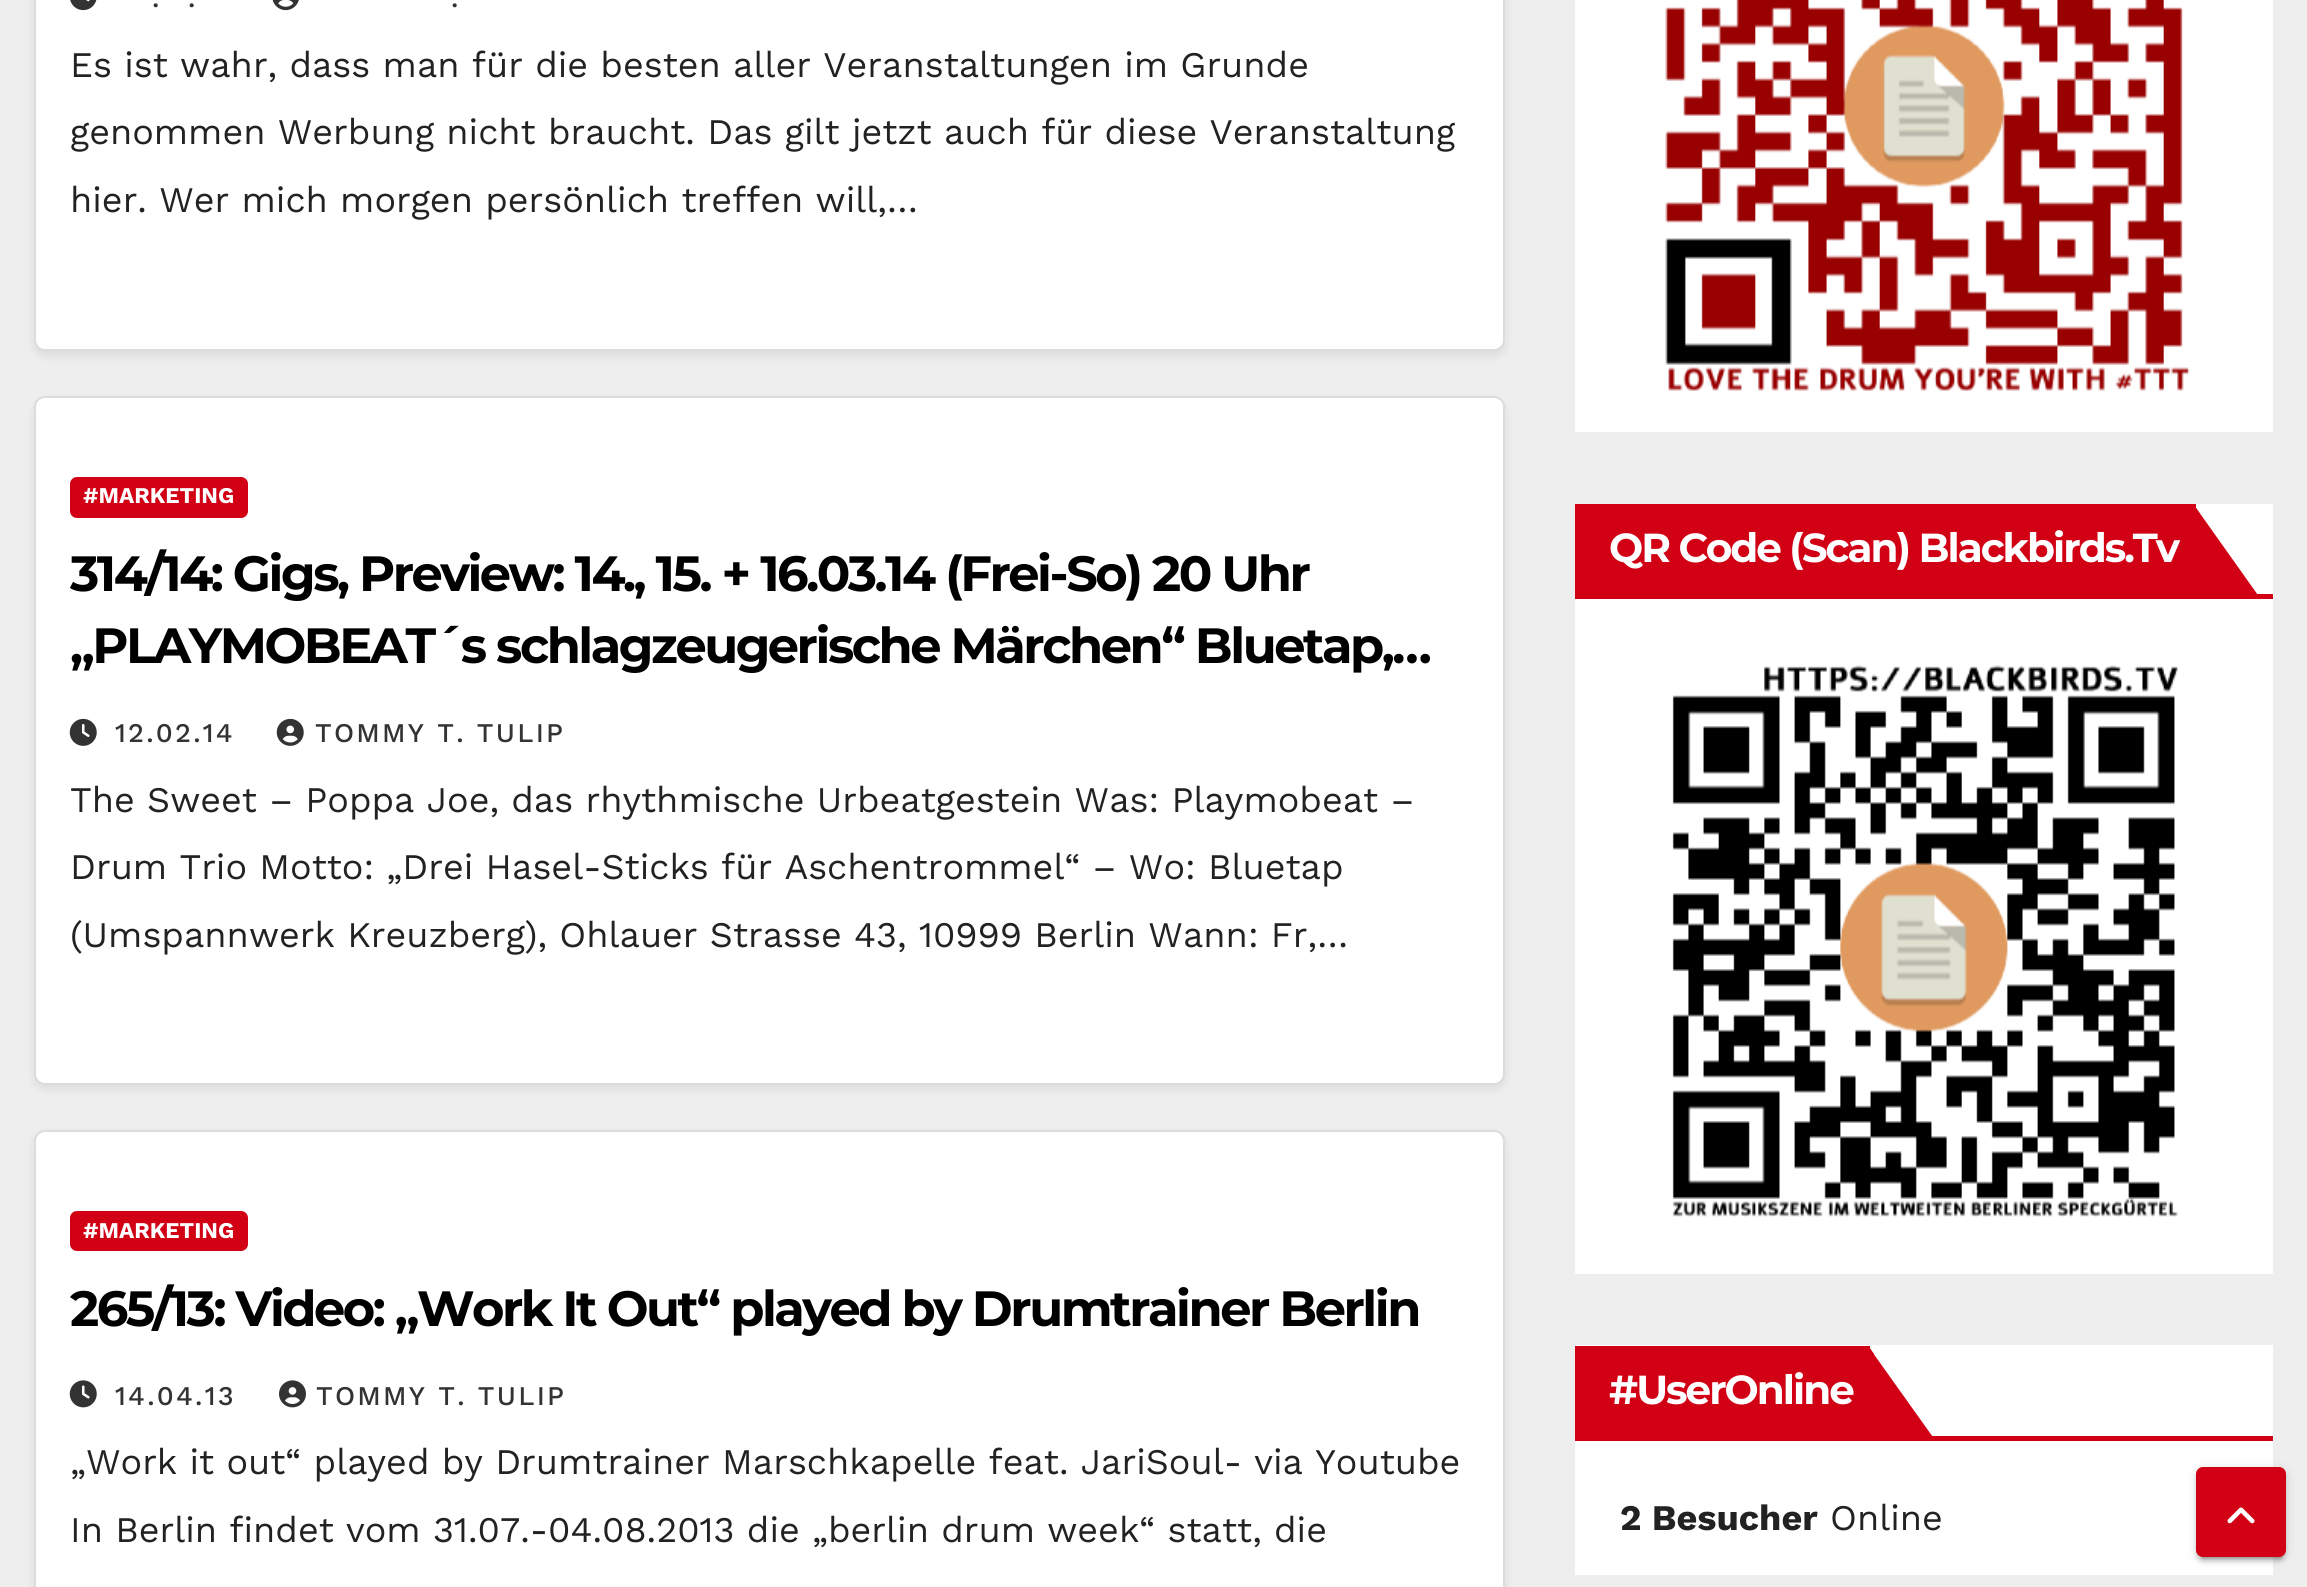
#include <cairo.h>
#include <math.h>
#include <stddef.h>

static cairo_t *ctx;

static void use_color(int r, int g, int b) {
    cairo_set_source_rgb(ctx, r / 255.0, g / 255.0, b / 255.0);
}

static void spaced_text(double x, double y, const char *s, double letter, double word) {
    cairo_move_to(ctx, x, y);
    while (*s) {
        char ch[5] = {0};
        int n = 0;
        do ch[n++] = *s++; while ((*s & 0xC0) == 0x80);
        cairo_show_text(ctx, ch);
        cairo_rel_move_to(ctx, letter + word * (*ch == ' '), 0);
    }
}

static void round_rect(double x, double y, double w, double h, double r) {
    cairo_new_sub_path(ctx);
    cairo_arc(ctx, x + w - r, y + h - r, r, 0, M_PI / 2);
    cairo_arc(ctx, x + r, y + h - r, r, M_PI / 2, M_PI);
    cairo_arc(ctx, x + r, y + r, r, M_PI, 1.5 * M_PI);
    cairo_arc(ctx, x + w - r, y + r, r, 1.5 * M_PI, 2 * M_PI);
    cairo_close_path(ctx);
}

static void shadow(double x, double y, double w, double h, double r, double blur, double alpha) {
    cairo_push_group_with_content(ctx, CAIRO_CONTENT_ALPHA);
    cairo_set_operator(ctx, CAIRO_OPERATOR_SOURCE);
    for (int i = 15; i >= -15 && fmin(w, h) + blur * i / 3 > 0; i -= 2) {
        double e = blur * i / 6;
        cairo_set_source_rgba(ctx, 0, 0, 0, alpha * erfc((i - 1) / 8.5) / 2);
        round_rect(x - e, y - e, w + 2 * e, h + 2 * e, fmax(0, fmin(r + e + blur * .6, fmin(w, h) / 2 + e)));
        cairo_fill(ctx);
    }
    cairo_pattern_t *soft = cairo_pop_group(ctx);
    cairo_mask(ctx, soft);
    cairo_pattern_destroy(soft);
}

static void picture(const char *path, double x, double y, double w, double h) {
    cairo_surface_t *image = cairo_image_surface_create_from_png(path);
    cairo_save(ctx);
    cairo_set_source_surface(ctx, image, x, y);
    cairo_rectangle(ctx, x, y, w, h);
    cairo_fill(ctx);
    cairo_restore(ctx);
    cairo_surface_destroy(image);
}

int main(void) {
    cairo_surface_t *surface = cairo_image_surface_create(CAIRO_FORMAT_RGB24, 2307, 1587);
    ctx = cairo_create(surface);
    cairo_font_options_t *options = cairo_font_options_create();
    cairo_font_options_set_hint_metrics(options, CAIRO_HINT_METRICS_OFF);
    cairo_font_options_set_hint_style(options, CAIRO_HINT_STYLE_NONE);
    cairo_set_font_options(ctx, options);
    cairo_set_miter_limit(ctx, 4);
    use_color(238, 238, 238);
    cairo_paint(ctx);
    use_color(0, 0, 0);
    shadow(34, -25, 1471, 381, 11, 4.5, 0.08);
    use_color(255, 255, 255);
    round_rect(35, -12, 1469, 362, 10);
    cairo_fill_preserve(ctx);
    use_color(221, 220, 220);
    cairo_stroke(ctx);
    picture("img1.png", 70, 0, 27, 11);
    cairo_select_font_face(ctx, "Work Sans Medium", CAIRO_FONT_SLANT_NORMAL, CAIRO_FONT_WEIGHT_NORMAL);
    cairo_set_font_size(ctx, 27);
    use_color(51, 51, 51);
    spaced_text(152, 7, ".", 2.25, 0);
    spaced_text(188, 7, ".", 2.25, 0);
    picture("img2.png", 272, 0, 27, 11);
    spaced_text(451, 7, ".", 2.25, 0);
    cairo_select_font_face(ctx, "Work Sans", CAIRO_FONT_SLANT_NORMAL, CAIRO_FONT_WEIGHT_NORMAL);
    cairo_set_font_size(ctx, 36);
    use_color(34, 34, 34);
    cairo_move_to(ctx, 70, 77);
    cairo_show_text(ctx, "Es ist wahr, dass man für die besten aller Veranstaltungen im Grunde");
    cairo_move_to(ctx, 70, 144);
    cairo_show_text(ctx, "genommen Werbung nicht braucht. Das gilt jetzt auch für diese Veranstaltung");
    cairo_move_to(ctx, 70, 212);
    cairo_show_text(ctx, "hier. Wer mich morgen persönlich treffen will,…");
    use_color(0, 0, 0);
    shadow(34, 401, 1471, 688, 11, 4.5, 0.08);
    use_color(255, 255, 255);
    round_rect(35, 397, 1469, 687, 10);
    cairo_fill_preserve(ctx);
    use_color(221, 220, 220);
    cairo_stroke(ctx);
    use_color(209, 0, 20);
    round_rect(70, 477, 178, 41, 7);
    cairo_fill(ctx);
    cairo_select_font_face(ctx, "Work Sans", CAIRO_FONT_SLANT_NORMAL, CAIRO_FONT_WEIGHT_BOLD);
    cairo_set_font_size(ctx, 22.5);
    use_color(255, 255, 255);
    cairo_move_to(ctx, 83, 503);
    cairo_show_text(ctx, "#MARKETING");
    cairo_select_font_face(ctx, "Montserrat", CAIRO_FONT_SLANT_NORMAL, CAIRO_FONT_WEIGHT_BOLD);
    cairo_set_font_size(ctx, 49.5);
    use_color(0, 0, 0);
    spaced_text(70, 591, "314/14: Gigs, Preview: 14., 15. + 16.03.14 (Frei-So) 20 Uhr", -2.48, 0);
    spaced_text(70, 663, "„PLAYMOBEAT´s schlagzeugerische Märchen“ Bluetap,…", -2.48, 0);
    picture("img3.png", 69, 718, 28, 28);
    cairo_select_font_face(ctx, "Work Sans Medium", CAIRO_FONT_SLANT_NORMAL, CAIRO_FONT_WEIGHT_NORMAL);
    cairo_set_font_size(ctx, 27);
    use_color(51, 51, 51);
    spaced_text(115, 742, "12.02.14", 2.25, 0);
    picture("img4.png", 276, 718, 28, 28);
    spaced_text(315, 742, "TOMMY T. TULIP", 2.25, 0);
    cairo_select_font_face(ctx, "Work Sans", CAIRO_FONT_SLANT_NORMAL, CAIRO_FONT_WEIGHT_NORMAL);
    cairo_set_font_size(ctx, 36);
    use_color(34, 34, 34);
    cairo_move_to(ctx, 70, 812);
    cairo_show_text(ctx, "The Sweet – Poppa Joe, das rhythmische Urbeatgestein Was: Playmobeat –");
    cairo_move_to(ctx, 70, 879);
    cairo_show_text(ctx, "Drum Trio Motto: „Drei Hasel-Sticks für Aschentrommel“ – Wo: Bluetap");
    cairo_move_to(ctx, 70, 947);
    cairo_show_text(ctx, "(Umspannwerk Kreuzberg), Ohlauer Strasse 43, 10999 Berlin Wann: Fr,…");
    use_color(0, 0, 0);
    shadow(34, 1134, 1471, 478, 11, 4.5, 0.08);
    use_color(255, 255, 255);
    round_rect(35, 1131, 1469, 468, 10);
    cairo_fill_preserve(ctx);
    use_color(221, 220, 220);
    cairo_stroke(ctx);
    use_color(209, 0, 20);
    round_rect(70, 1211, 178, 40, 7);
    cairo_fill(ctx);
    cairo_select_font_face(ctx, "Work Sans", CAIRO_FONT_SLANT_NORMAL, CAIRO_FONT_WEIGHT_BOLD);
    cairo_set_font_size(ctx, 22.5);
    use_color(255, 255, 255);
    cairo_move_to(ctx, 83, 1238);
    cairo_show_text(ctx, "#MARKETING");
    cairo_select_font_face(ctx, "Montserrat", CAIRO_FONT_SLANT_NORMAL, CAIRO_FONT_WEIGHT_BOLD);
    cairo_set_font_size(ctx, 49.5);
    use_color(0, 0, 0);
    spaced_text(70, 1326, "265/13: Video: „Work It Out“ played by Drumtrainer Berlin", -2.48, 0);
    picture("img5.png", 69, 1380, 28, 28);
    cairo_select_font_face(ctx, "Work Sans Medium", CAIRO_FONT_SLANT_NORMAL, CAIRO_FONT_WEIGHT_NORMAL);
    cairo_set_font_size(ctx, 27);
    use_color(51, 51, 51);
    spaced_text(115, 1405, "14.04.13", 2.25, 0);
    picture("img6.png", 279, 1380, 27, 28);
    spaced_text(316, 1405, "TOMMY T. TULIP", 2.25, 0);
    cairo_select_font_face(ctx, "Work Sans", CAIRO_FONT_SLANT_NORMAL, CAIRO_FONT_WEIGHT_NORMAL);
    cairo_set_font_size(ctx, 36);
    use_color(34, 34, 34);
    cairo_move_to(ctx, 70, 1474);
    cairo_show_text(ctx, "„Work it out“ played by Drumtrainer Marschkapelle feat. JariSoul- via Youtube");
    cairo_move_to(ctx, 70, 1542);
    cairo_show_text(ctx, "In Berlin findet vom 31.07.-04.08.2013 die „berlin drum week“ statt, die");
    use_color(255, 255, 255);
    cairo_rectangle(ctx, 1575, 0, 698, 432);
    cairo_fill(ctx);
    picture("img7.png", 1665, 0, 525, 391);
    cairo_rectangle(ctx, 1575, 504, 698, 770);
    cairo_fill(ctx);
    use_color(209, 0, 20);
    cairo_rectangle(ctx, 1575, 594, 698, 5);
    cairo_fill(ctx);
    cairo_rectangle(ctx, 1575, 504, 621, 90);
    cairo_fill(ctx);
    cairo_select_font_face(ctx, "Montserrat", CAIRO_FONT_SLANT_NORMAL, CAIRO_FONT_WEIGHT_BOLD);
    cairo_set_font_size(ctx, 40.5);
    use_color(255, 255, 255);
    spaced_text(1609, 562, "QR Code (Scan) Blackbirds.Tv", -2, 0);
    use_color(209, 0, 20);
    cairo_new_path(ctx);
    cairo_move_to(ctx, 2194, 505);
    cairo_line_to(ctx, 2194, 598);
    cairo_line_to(ctx, 2260, 598);
    cairo_close_path(ctx);
    cairo_fill(ctx);
    cairo_new_path(ctx);
    cairo_move_to(ctx, 2194, 598);
    cairo_line_to(ctx, 2200, 592);
    cairo_line_to(ctx, 2200, 514);
    cairo_line_to(ctx, 2194, 505);
    cairo_close_path(ctx);
    cairo_fill(ctx);
    picture("img8.png", 1672, 665, 506, 552);
    use_color(255, 255, 255);
    cairo_rectangle(ctx, 1575, 1345, 698, 230);
    cairo_fill(ctx);
    use_color(209, 0, 20);
    cairo_rectangle(ctx, 1575, 1436, 698, 5);
    cairo_fill(ctx);
    cairo_rectangle(ctx, 1575, 1346, 295, 90);
    cairo_fill(ctx);
    use_color(255, 255, 255);
    spaced_text(1609, 1404, "#UserOnline", -2, 0);
    use_color(209, 0, 20);
    cairo_new_path(ctx);
    cairo_move_to(ctx, 1868, 1346);
    cairo_line_to(ctx, 1868, 1440);
    cairo_line_to(ctx, 1935, 1440);
    cairo_close_path(ctx);
    cairo_fill(ctx);
    cairo_new_path(ctx);
    cairo_move_to(ctx, 1869, 1347);
    cairo_line_to(ctx, 1868, 1346);
    cairo_line_to(ctx, 1868, 1440);
    cairo_line_to(ctx, 1874, 1433);
    cairo_line_to(ctx, 1874, 1354);
    cairo_close_path(ctx);
    cairo_fill(ctx);
    cairo_select_font_face(ctx, "Work Sans", CAIRO_FONT_SLANT_NORMAL, CAIRO_FONT_WEIGHT_BOLD);
    cairo_set_font_size(ctx, 36);
    use_color(34, 34, 34);
    cairo_move_to(ctx, 1620, 1530);
    cairo_show_text(ctx, "2 Besucher");
    cairo_select_font_face(ctx, "Work Sans", CAIRO_FONT_SLANT_NORMAL, CAIRO_FONT_WEIGHT_NORMAL);
    cairo_move_to(ctx, 1830, 1530);
    cairo_show_text(ctx, "Online");
    use_color(0, 0, 0);
    shadow(2196, 1469, 90, 90, 7, 5.5, 0.12);
    shadow(2201, 1478, 81, 81, 2, 1, 0.2);
    shadow(2196, 1472, 90, 90, 7, 2, 0.14);
    use_color(209, 0, 20);
    round_rect(2198.5, 1469.5, 85, 85, 4.5);
    cairo_fill_preserve(ctx);
    cairo_set_line_width(ctx, 5);
    cairo_stroke(ctx);
    picture("img9.png", 2227, 1507, 28, 17);
    cairo_surface_write_to_png(surface, "result.png");
    cairo_font_options_destroy(options);
    cairo_destroy(ctx);
    cairo_surface_destroy(surface);
    return 0;
}
